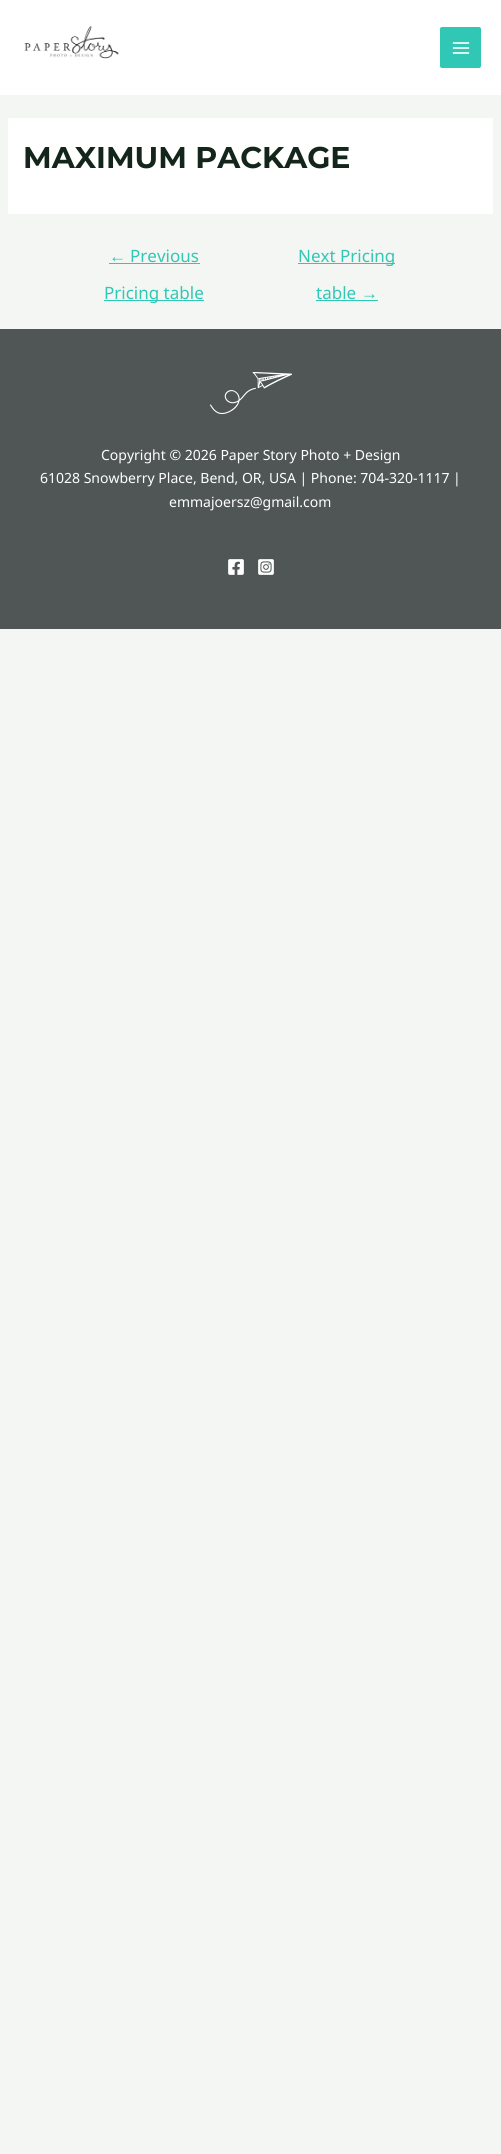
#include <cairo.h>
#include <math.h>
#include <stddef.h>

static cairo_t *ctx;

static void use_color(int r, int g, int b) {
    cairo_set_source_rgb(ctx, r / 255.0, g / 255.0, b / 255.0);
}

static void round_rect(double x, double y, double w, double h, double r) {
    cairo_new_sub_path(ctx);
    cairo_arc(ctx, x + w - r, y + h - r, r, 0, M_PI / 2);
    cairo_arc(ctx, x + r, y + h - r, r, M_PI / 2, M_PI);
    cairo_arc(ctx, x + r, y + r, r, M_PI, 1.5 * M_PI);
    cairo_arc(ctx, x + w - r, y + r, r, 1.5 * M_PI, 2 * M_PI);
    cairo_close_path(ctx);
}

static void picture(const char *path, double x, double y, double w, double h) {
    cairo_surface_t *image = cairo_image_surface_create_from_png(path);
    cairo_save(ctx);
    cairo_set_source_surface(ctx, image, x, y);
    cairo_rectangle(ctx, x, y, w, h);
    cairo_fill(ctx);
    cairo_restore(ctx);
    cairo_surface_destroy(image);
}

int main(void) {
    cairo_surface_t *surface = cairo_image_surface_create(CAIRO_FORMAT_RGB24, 501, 2154);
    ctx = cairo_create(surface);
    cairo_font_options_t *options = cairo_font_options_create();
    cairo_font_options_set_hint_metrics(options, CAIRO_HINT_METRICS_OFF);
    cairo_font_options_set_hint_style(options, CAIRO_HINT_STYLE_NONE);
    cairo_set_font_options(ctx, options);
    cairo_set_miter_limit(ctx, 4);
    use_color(243, 246, 243);
    cairo_paint(ctx);
    use_color(255, 255, 255);
    cairo_rectangle(ctx, 0, 0, 501, 95);
    cairo_fill(ctx);
    picture("img1.png", 24, 26, 95, 33);
    use_color(48, 199, 181);
    round_rect(440, 27, 41, 41, 2);
    cairo_fill(ctx);
    picture("img2.png", 452, 42, 18, 12);
    use_color(255, 255, 255);
    cairo_rectangle(ctx, 8, 118, 485, 96);
    cairo_fill(ctx);
    cairo_select_font_face(ctx, "Montserrat Thin", CAIRO_FONT_SLANT_NORMAL, CAIRO_FONT_WEIGHT_NORMAL);
    cairo_set_font_size(ctx, 30);
    use_color(20, 38, 28);
    cairo_move_to(ctx, 23, 168);
    cairo_show_text(ctx, "MAXIMUM PACKAGE");
    cairo_select_font_face(ctx, "Liberation Sans", CAIRO_FONT_SLANT_NORMAL, CAIRO_FONT_WEIGHT_NORMAL);
    cairo_set_font_size(ctx, 17);
    use_color(48, 199, 181);
    cairo_move_to(ctx, 109, 262);
    cairo_show_text(ctx, "←");
    cairo_rectangle(ctx, 109, 263, 91, 1);
    cairo_fill(ctx);
    cairo_select_font_face(ctx, "Noto Sans", CAIRO_FONT_SLANT_NORMAL, CAIRO_FONT_WEIGHT_NORMAL);
    cairo_move_to(ctx, 130, 262);
    cairo_show_text(ctx, "Previous");
    cairo_rectangle(ctx, 104, 300, 100, 1);
    cairo_fill(ctx);
    cairo_move_to(ctx, 104, 299);
    cairo_show_text(ctx, "Pricing table");
    cairo_rectangle(ctx, 298, 263, 97, 1);
    cairo_fill(ctx);
    cairo_move_to(ctx, 298, 262);
    cairo_show_text(ctx, "Next Pricing");
    cairo_move_to(ctx, 316, 299);
    cairo_show_text(ctx, "table");
    cairo_rectangle(ctx, 316, 300, 62, 1);
    cairo_fill(ctx);
    cairo_select_font_face(ctx, "Liberation Sans", CAIRO_FONT_SLANT_NORMAL, CAIRO_FONT_WEIGHT_NORMAL);
    cairo_move_to(ctx, 361, 299);
    cairo_show_text(ctx, "→");
    use_color(79, 86, 85);
    cairo_rectangle(ctx, 0, 329, 501, 300);
    cairo_fill(ctx);
    picture("img3.png", 210, 372, 82, 42);
    cairo_select_font_face(ctx, "Noto Sans", CAIRO_FONT_SLANT_NORMAL, CAIRO_FONT_WEIGHT_NORMAL);
    cairo_set_font_size(ctx, 14);
    use_color(255, 255, 255);
    cairo_move_to(ctx, 101, 460);
    cairo_show_text(ctx, "Copyright © 2026 Paper Story Photo + Design");
    cairo_move_to(ctx, 40, 483);
    cairo_show_text(ctx, "61028 Snowberry Place, Bend, OR, USA | Phone: 704-320-1117 |");
    cairo_move_to(ctx, 169, 507);
    cairo_show_text(ctx, "emmajoersz@gmail.com");
    picture("img4.png", 228, 559, 16, 16);
    picture("img5.png", 258, 559, 16, 16);
    cairo_surface_write_to_png(surface, "result.png");
    cairo_font_options_destroy(options);
    cairo_destroy(ctx);
    cairo_surface_destroy(surface);
    return 0;
}
